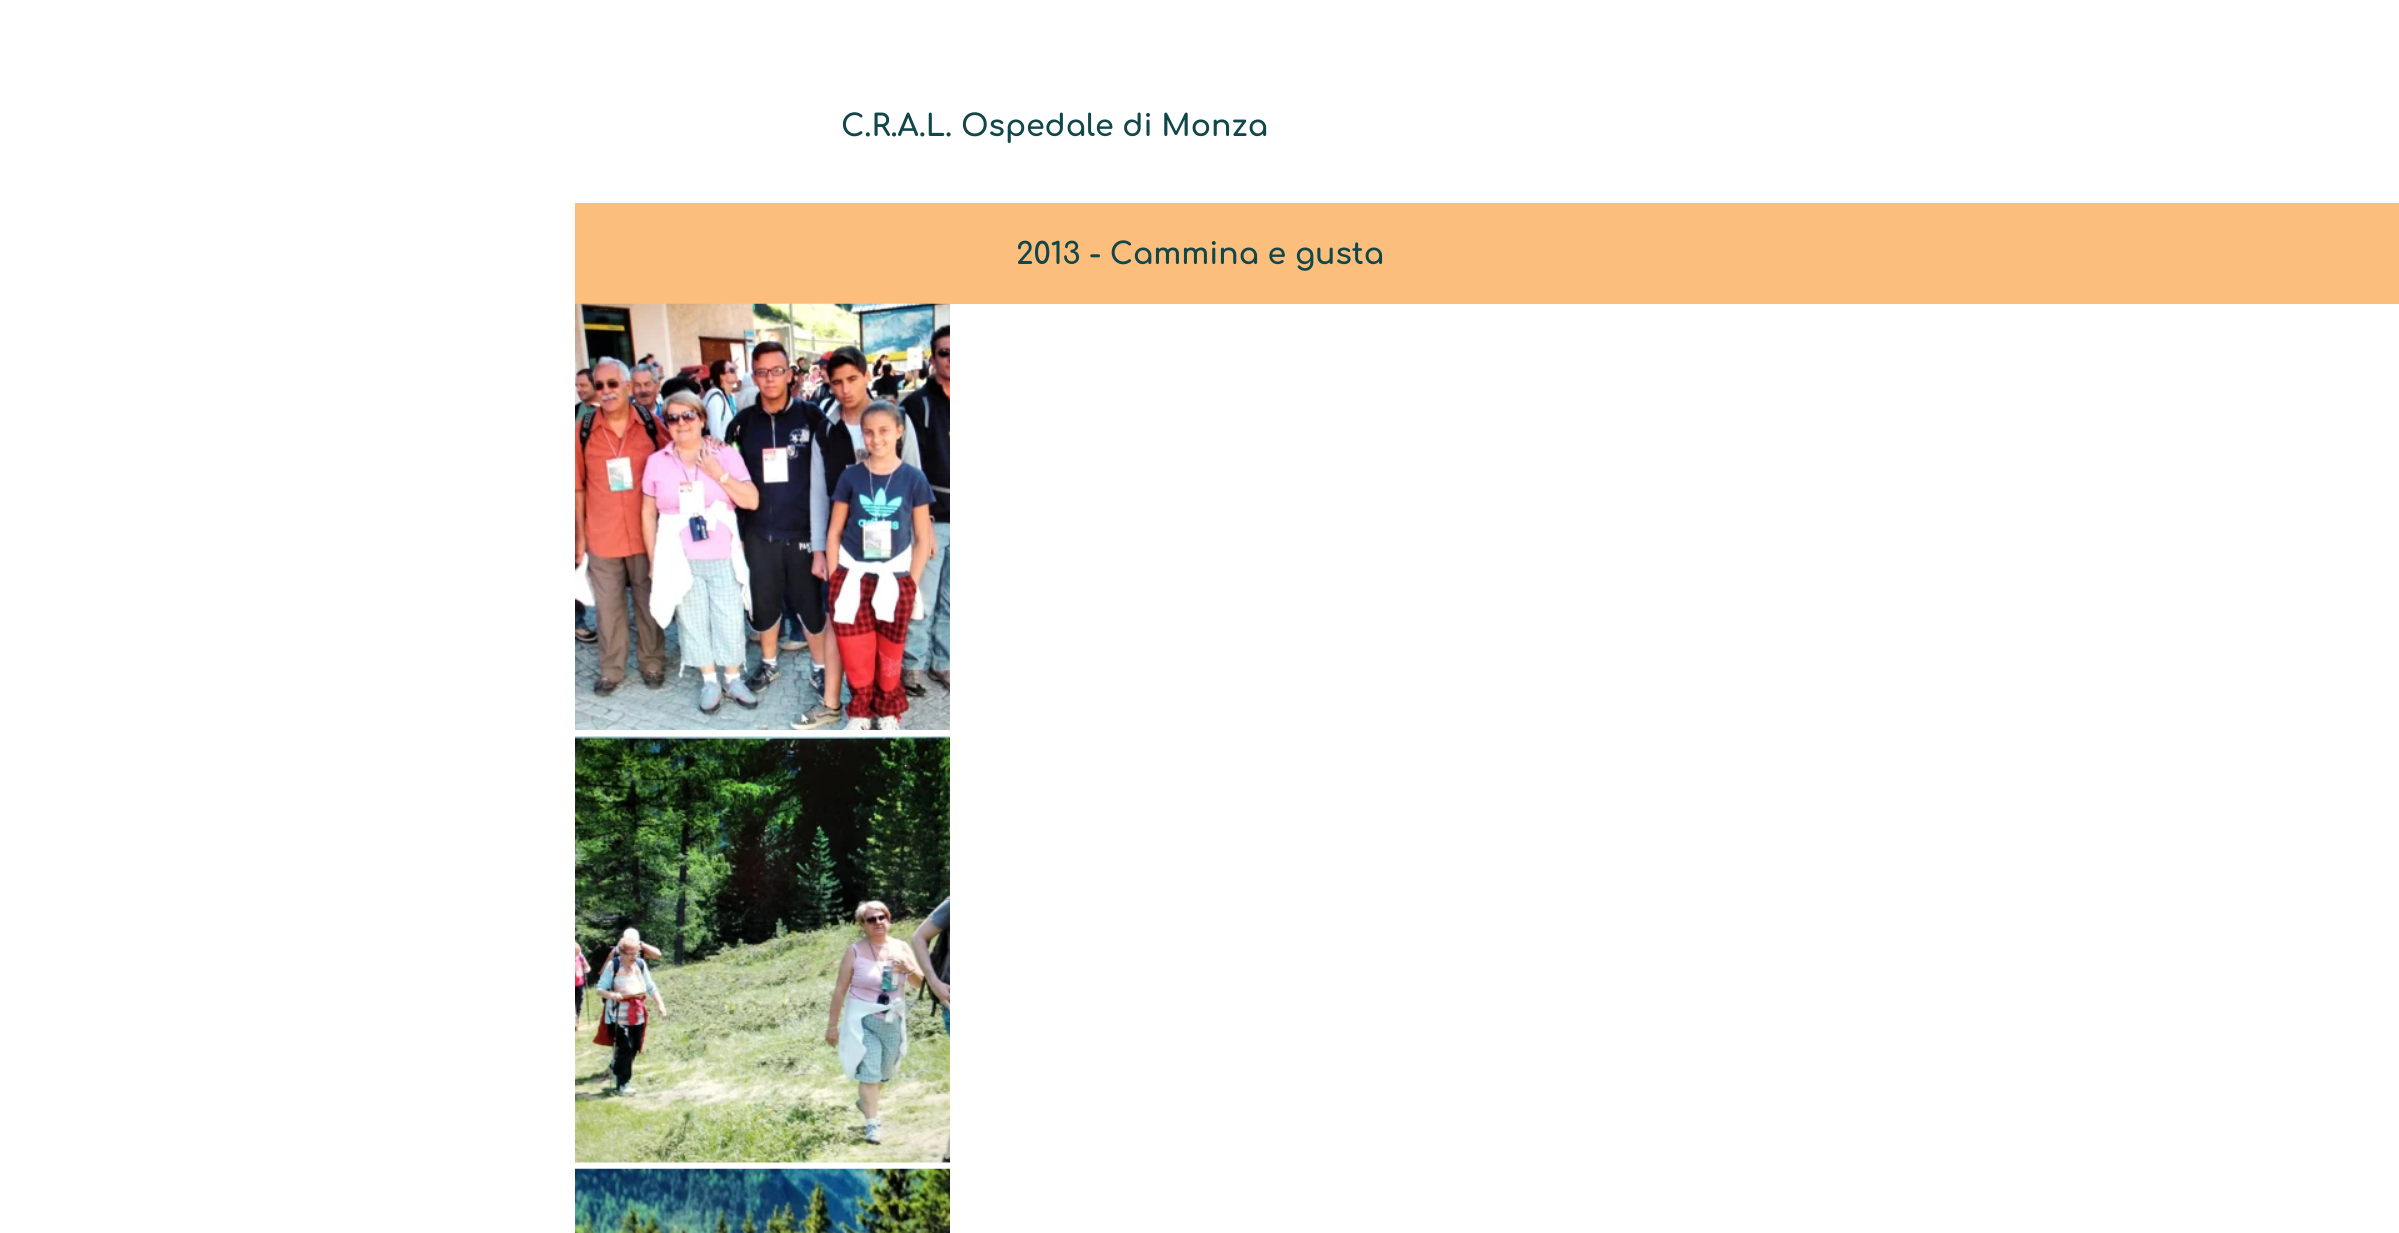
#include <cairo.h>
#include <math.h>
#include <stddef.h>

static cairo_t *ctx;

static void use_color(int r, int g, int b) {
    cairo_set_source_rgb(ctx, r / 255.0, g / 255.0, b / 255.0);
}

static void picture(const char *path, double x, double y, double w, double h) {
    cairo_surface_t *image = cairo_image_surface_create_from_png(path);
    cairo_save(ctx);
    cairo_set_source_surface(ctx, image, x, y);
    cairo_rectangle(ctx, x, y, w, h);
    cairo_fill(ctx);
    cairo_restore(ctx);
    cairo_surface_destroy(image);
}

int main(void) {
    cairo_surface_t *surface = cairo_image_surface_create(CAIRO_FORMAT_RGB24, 2399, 1233);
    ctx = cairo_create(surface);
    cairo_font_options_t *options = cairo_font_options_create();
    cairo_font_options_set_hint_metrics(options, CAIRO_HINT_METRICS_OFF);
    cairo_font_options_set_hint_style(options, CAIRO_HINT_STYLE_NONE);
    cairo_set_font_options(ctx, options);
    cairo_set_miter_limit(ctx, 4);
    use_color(255, 255, 255);
    cairo_paint(ctx);
    cairo_select_font_face(ctx, "Comfortaa", CAIRO_FONT_SLANT_NORMAL, CAIRO_FONT_WEIGHT_BOLD);
    cairo_set_font_size(ctx, 30);
    use_color(18, 71, 73);
    cairo_move_to(ctx, 841, 136);
    cairo_show_text(ctx, "C.R.A.L. Ospedale di Monza");
    use_color(251, 190, 125);
    cairo_rectangle(ctx, 575, 203, 1824, 101);
    cairo_fill(ctx);
    cairo_set_font_size(ctx, 29.9);
    use_color(18, 71, 73);
    cairo_move_to(ctx, 1016, 264);
    cairo_show_text(ctx, "2013 - Cammina e gusta");
    picture("img1.png", 575, 303, 375, 427);
    picture("img2.png", 575, 736, 375, 427);
    picture("img3.png", 575, 1168, 375, 65);
    cairo_surface_write_to_png(surface, "result.png");
    cairo_font_options_destroy(options);
    cairo_destroy(ctx);
    cairo_surface_destroy(surface);
    return 0;
}
